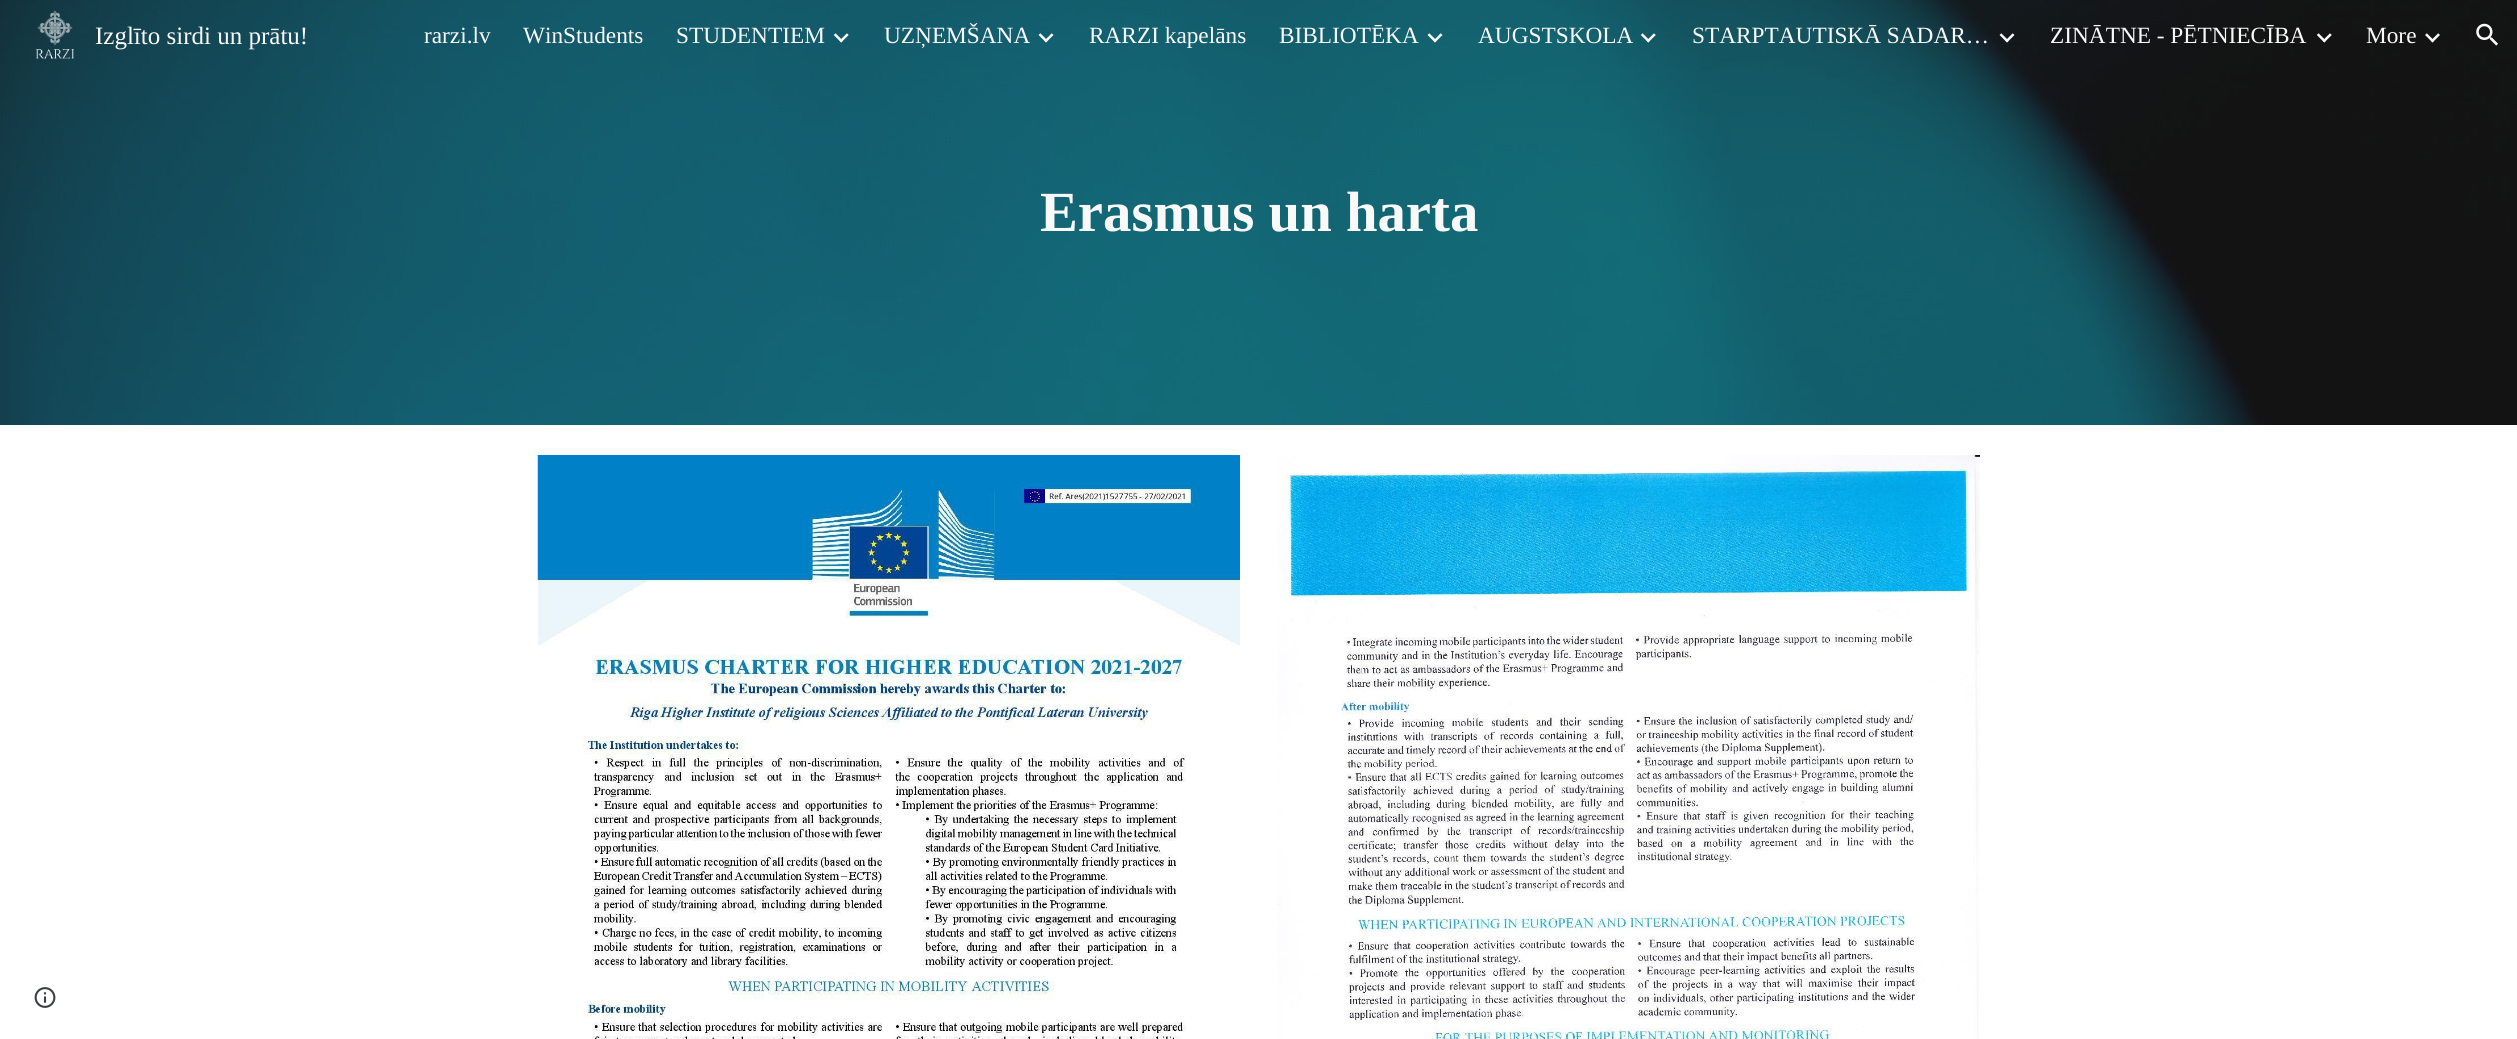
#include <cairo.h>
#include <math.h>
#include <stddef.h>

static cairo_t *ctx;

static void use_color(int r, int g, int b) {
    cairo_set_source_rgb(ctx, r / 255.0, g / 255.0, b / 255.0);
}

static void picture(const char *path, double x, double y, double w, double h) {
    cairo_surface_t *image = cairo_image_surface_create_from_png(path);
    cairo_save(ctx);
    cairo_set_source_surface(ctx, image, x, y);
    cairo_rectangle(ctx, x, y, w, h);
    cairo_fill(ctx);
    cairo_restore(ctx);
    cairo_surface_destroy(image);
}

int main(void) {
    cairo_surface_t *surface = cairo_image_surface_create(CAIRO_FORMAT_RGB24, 2517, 1039);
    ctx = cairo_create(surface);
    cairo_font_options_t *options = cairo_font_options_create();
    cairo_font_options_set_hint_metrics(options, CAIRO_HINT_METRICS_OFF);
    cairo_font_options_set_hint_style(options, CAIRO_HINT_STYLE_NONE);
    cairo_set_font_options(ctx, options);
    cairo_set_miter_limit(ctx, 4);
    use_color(255, 255, 255);
    cairo_paint(ctx);
    picture("img10.png", 0, 0, 2517, 425);
    picture("img1.png", 35, 10, 40, 49);
    cairo_select_font_face(ctx, "Liberation Serif", CAIRO_FONT_SLANT_NORMAL, CAIRO_FONT_WEIGHT_NORMAL);
    cairo_set_font_size(ctx, 25);
    use_color(249, 249, 249);
    cairo_move_to(ctx, 95, 44);
    cairo_show_text(ctx, "Izglīto sirdi un prātu!");
    cairo_set_font_size(ctx, 23.3);
    cairo_move_to(ctx, 424, 43);
    cairo_show_text(ctx, "rarzi.lv");
    cairo_move_to(ctx, 523, 43);
    cairo_show_text(ctx, "WinStudents");
    cairo_move_to(ctx, 676, 43);
    cairo_show_text(ctx, "STUDENTIEM");
    picture("img2.png", 833, 33, 16, 10);
    cairo_move_to(ctx, 884, 43);
    cairo_show_text(ctx, "UZŅEMŠANA");
    picture("img3.png", 1038, 33, 16, 10);
    cairo_move_to(ctx, 1089, 43);
    cairo_show_text(ctx, "RARZI kapelāns");
    cairo_move_to(ctx, 1279, 43);
    cairo_show_text(ctx, "BIBLIOTĒKA");
    picture("img4.png", 1427, 33, 16, 10);
    cairo_move_to(ctx, 1478, 43);
    cairo_show_text(ctx, "AUGSTSKOLA");
    picture("img5.png", 1640, 33, 16, 10);
    cairo_move_to(ctx, 1692, 43);
    cairo_show_text(ctx, "STARPTAUTISKĀ SADAR…");
    picture("img6.png", 1999, 33, 16, 10);
    cairo_move_to(ctx, 2050, 43);
    cairo_show_text(ctx, "ZINĀTNE - PĒTNIECĪBA");
    picture("img7.png", 2317, 33, 15, 10);
    cairo_move_to(ctx, 2366, 43);
    cairo_show_text(ctx, "More");
    picture("img8.png", 2425, 33, 15, 10);
    picture("img9.png", 2476, 23, 22, 23);
    cairo_select_font_face(ctx, "Liberation Serif", CAIRO_FONT_SLANT_NORMAL, CAIRO_FONT_WEIGHT_BOLD);
    cairo_set_font_size(ctx, 56.75);
    cairo_move_to(ctx, 1040, 231);
    cairo_show_text(ctx, "Erasmus un harta");
    picture("img11.png", 537, 455, 703, 584);
    picture("img12.png", 1277, 455, 703, 584);
    picture("img13.png", 34, 987, 22, 21);
    cairo_surface_write_to_png(surface, "result.png");
    cairo_font_options_destroy(options);
    cairo_destroy(ctx);
    cairo_surface_destroy(surface);
    return 0;
}
